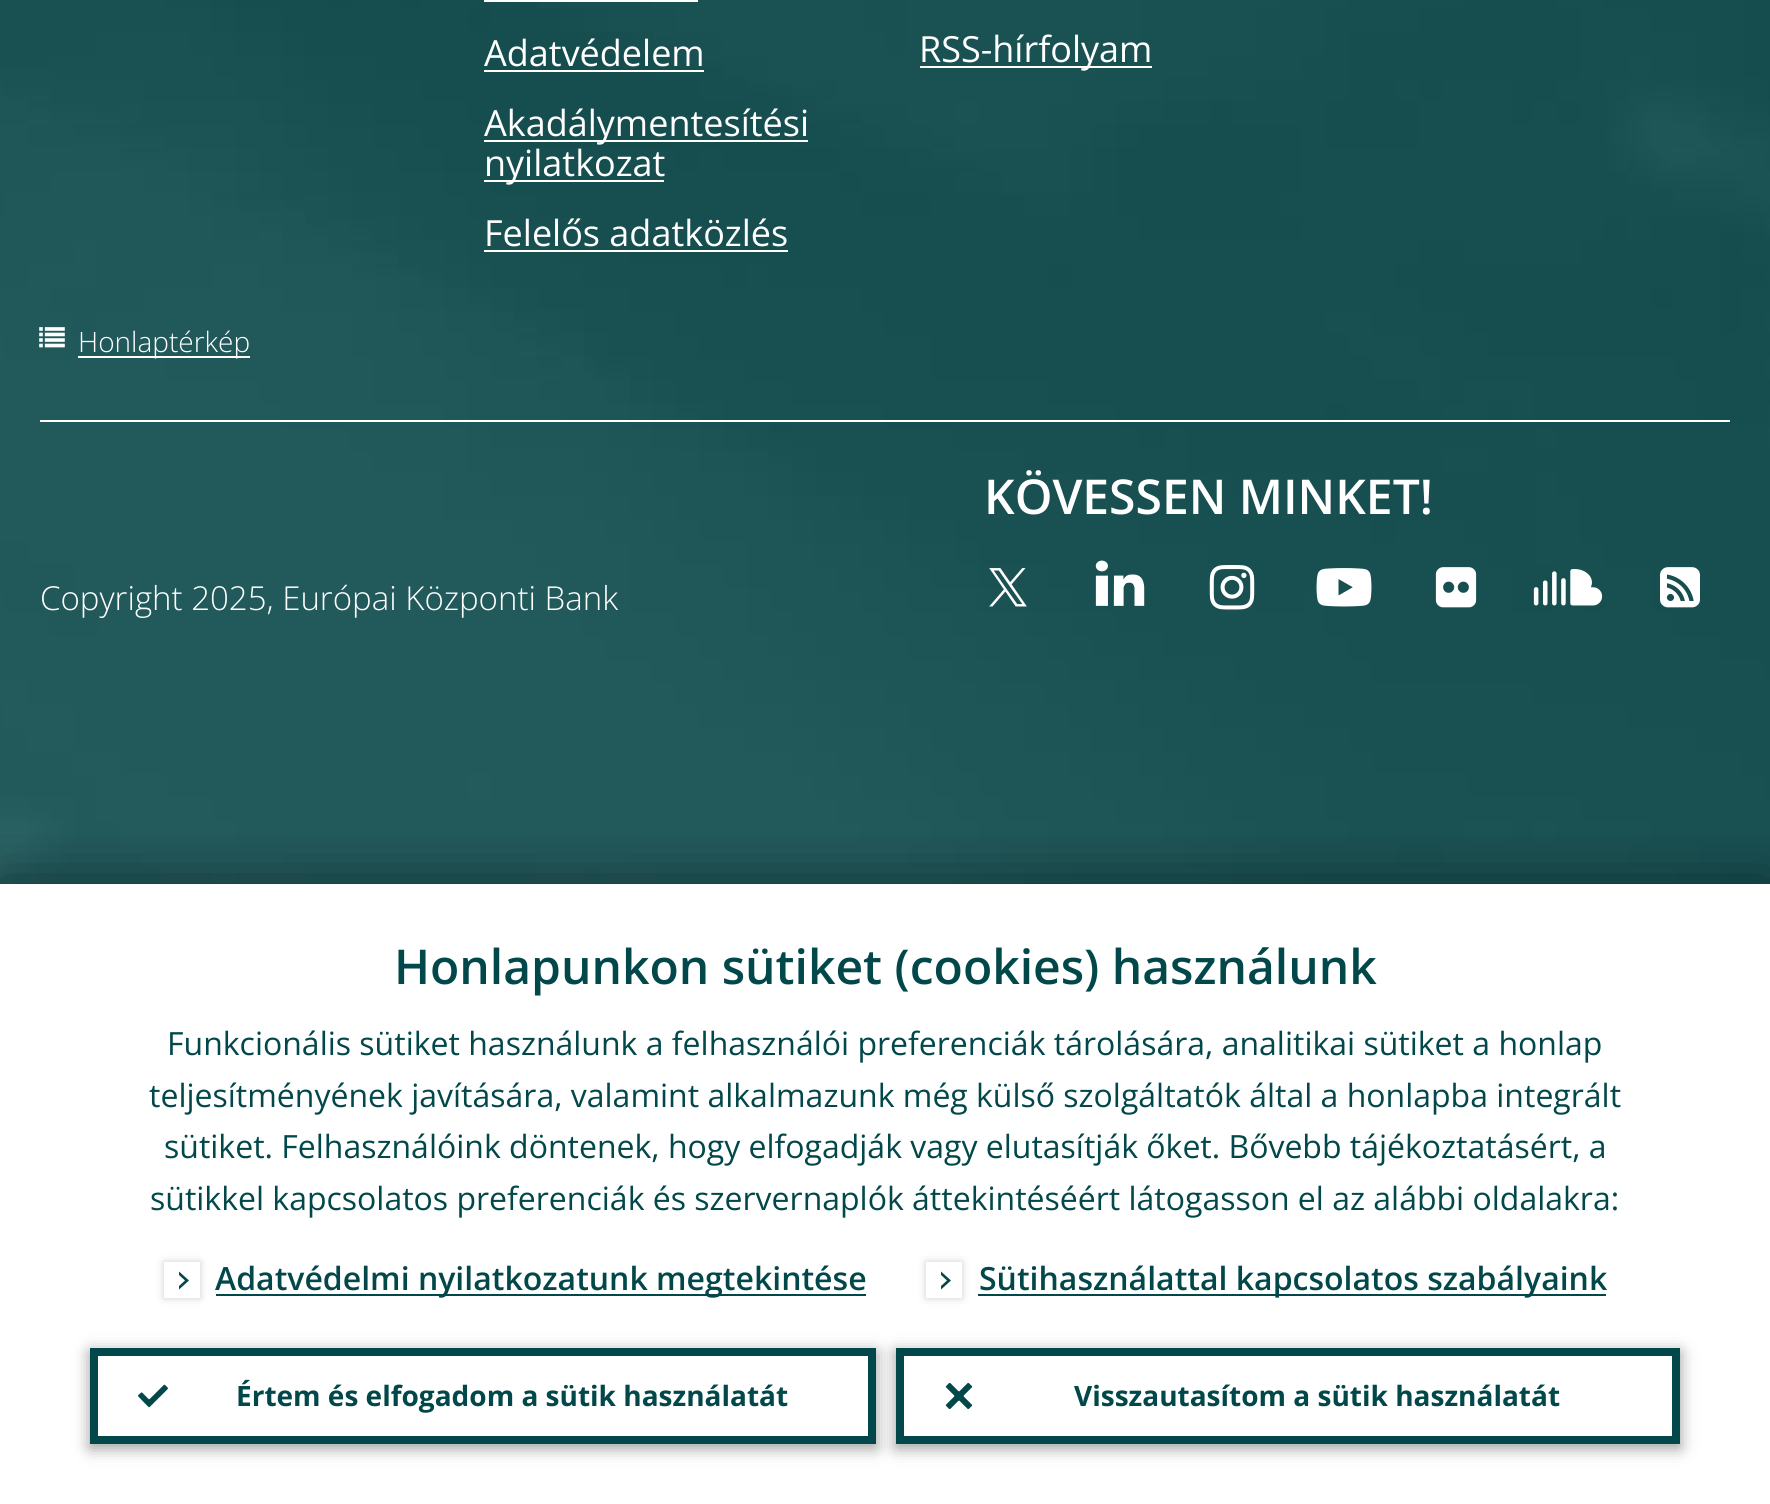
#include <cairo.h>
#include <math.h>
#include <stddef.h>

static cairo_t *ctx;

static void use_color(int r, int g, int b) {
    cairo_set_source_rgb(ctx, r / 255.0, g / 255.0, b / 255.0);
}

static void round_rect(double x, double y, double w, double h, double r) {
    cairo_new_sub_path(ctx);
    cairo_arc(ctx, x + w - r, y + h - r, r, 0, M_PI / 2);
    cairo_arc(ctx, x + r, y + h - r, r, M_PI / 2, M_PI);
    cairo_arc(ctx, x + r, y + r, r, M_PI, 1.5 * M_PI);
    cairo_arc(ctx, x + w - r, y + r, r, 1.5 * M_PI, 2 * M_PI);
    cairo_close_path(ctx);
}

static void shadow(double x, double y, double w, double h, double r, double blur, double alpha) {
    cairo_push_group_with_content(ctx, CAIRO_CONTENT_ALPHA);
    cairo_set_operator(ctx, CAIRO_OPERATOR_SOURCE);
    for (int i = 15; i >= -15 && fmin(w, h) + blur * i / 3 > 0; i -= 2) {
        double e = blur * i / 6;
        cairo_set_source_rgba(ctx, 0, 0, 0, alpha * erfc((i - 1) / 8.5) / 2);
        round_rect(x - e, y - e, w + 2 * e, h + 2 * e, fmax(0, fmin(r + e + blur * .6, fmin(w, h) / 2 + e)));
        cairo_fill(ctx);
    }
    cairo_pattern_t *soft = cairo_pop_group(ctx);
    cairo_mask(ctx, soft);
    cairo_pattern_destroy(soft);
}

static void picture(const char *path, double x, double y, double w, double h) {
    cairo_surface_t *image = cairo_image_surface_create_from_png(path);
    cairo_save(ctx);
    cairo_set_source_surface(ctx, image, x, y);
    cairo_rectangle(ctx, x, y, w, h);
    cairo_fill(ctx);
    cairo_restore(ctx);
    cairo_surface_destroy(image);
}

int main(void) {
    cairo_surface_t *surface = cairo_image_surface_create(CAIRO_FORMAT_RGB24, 1770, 1504);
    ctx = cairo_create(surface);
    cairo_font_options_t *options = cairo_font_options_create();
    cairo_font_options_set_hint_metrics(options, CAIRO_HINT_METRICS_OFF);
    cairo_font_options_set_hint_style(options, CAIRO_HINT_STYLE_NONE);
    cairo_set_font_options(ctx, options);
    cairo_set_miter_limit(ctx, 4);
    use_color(255, 255, 255);
    cairo_paint(ctx);
    use_color(5, 74, 76);
    cairo_rectangle(ctx, 0, 0, 1770, 884);
    cairo_fill(ctx);
    picture("img1.png", 0, 0, 1770, 884);
    use_color(255, 255, 255);
    cairo_rectangle(ctx, 484, 0, 214, 2);
    cairo_fill(ctx);
    cairo_select_font_face(ctx, "Open Sans", CAIRO_FONT_SLANT_NORMAL, CAIRO_FONT_WEIGHT_NORMAL);
    cairo_set_font_size(ctx, 36);
    cairo_move_to(ctx, 484, 66);
    cairo_show_text(ctx, "Adatvédelem");
    cairo_rectangle(ctx, 484, 70, 220, 2);
    cairo_fill(ctx);
    cairo_rectangle(ctx, 484, 140, 324, 2);
    cairo_fill(ctx);
    cairo_move_to(ctx, 484, 136);
    cairo_show_text(ctx, "Akadálymentesítési");
    cairo_rectangle(ctx, 484, 180, 180, 2);
    cairo_fill(ctx);
    cairo_move_to(ctx, 484, 176);
    cairo_show_text(ctx, "nyilatkozat");
    cairo_move_to(ctx, 484, 246);
    cairo_show_text(ctx, "Felelős adatközlés");
    cairo_rectangle(ctx, 484, 250, 304, 2);
    cairo_fill(ctx);
    cairo_rectangle(ctx, 920, 66, 232, 2);
    cairo_fill(ctx);
    cairo_move_to(ctx, 919, 62);
    cairo_show_text(ctx, "RSS-hírfolyam");
    cairo_rectangle(ctx, 40, 420, 1690, 2);
    cairo_fill(ctx);
    picture("img2.png", 39, 327, 26, 21);
    cairo_rectangle(ctx, 78, 356, 172, 2);
    cairo_fill(ctx);
    cairo_select_font_face(ctx, "Open Sans Light", CAIRO_FONT_SLANT_NORMAL, CAIRO_FONT_WEIGHT_NORMAL);
    cairo_set_font_size(ctx, 28);
    cairo_move_to(ctx, 78, 352);
    cairo_show_text(ctx, "Honlaptérkép");
    cairo_select_font_face(ctx, "Open Sans SemiBold", CAIRO_FONT_SLANT_NORMAL, CAIRO_FONT_WEIGHT_NORMAL);
    cairo_set_font_size(ctx, 48);
    cairo_move_to(ctx, 984, 514);
    cairo_show_text(ctx, "KÖVESSEN MINKET!");
    picture("img3.png", 989, 568, 38, 39);
    picture("img4.png", 1095, 560, 50, 46);
    picture("img5.png", 1209, 565, 46, 45);
    picture("img6.png", 1316, 568, 56, 39);
    picture("img7.png", 1435, 567, 42, 41);
    picture("img8.png", 1533, 569, 70, 37);
    picture("img9.png", 1660, 567, 40, 41);
    cairo_select_font_face(ctx, "Open Sans Light", CAIRO_FONT_SLANT_NORMAL, CAIRO_FONT_WEIGHT_NORMAL);
    cairo_set_font_size(ctx, 33);
    cairo_move_to(ctx, 40, 610);
    cairo_show_text(ctx, "Copyright 2025, Európai Központi Bank");
    cairo_save(ctx);
    cairo_rectangle(ctx, 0, 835, 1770, 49);
    cairo_clip(ctx);
    use_color(0, 0, 0);
    shadow(0, 888, 1770, 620, 0, 30, 0.5);
    cairo_restore(ctx);
    cairo_select_font_face(ctx, "Open Sans SemiBold", CAIRO_FONT_SLANT_NORMAL, CAIRO_FONT_WEIGHT_NORMAL);
    cairo_set_font_size(ctx, 48);
    use_color(2, 72, 74);
    cairo_move_to(ctx, 394, 984);
    cairo_show_text(ctx, "Honlapunkon sütiket (cookies) használunk");
    cairo_select_font_face(ctx, "Open Sans", CAIRO_FONT_SLANT_NORMAL, CAIRO_FONT_WEIGHT_NORMAL);
    cairo_set_font_size(ctx, 32);
    cairo_move_to(ctx, 167, 1055);
    cairo_show_text(ctx, "Funkcionális sütiket használunk a felhasználói preferenciák tárolására, analitikai sütiket a honlap");
    cairo_move_to(ctx, 149, 1107);
    cairo_show_text(ctx, "teljesítményének javítására, valamint alkalmazunk még külső szolgáltatók által a honlapba integrált");
    cairo_move_to(ctx, 164, 1158);
    cairo_show_text(ctx, "sütiket. Felhasználóink döntenek, hogy elfogadják vagy elutasítják őket. Bővebb tájékoztatásért, a");
    cairo_move_to(ctx, 150, 1210);
    cairo_show_text(ctx, "sütikkel kapcsolatos preferenciák és szervernaplók áttekintéséért látogasson el az alábbi oldalakra:");
    cairo_save(ctx);
    cairo_set_fill_rule(ctx, CAIRO_FILL_RULE_EVEN_ODD);
    cairo_new_path(ctx);
    cairo_move_to(ctx, 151, 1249);
    cairo_line_to(ctx, 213, 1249);
    cairo_line_to(ctx, 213, 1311);
    cairo_line_to(ctx, 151, 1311);
    cairo_close_path(ctx);
    cairo_move_to(ctx, 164, 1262);
    cairo_line_to(ctx, 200, 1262);
    cairo_line_to(ctx, 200, 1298);
    cairo_line_to(ctx, 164, 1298);
    cairo_close_path(ctx);
    cairo_clip(ctx);
    use_color(0, 0, 0);
    shadow(164, 1262, 36, 36, 0, 4, 0.2);
    cairo_restore(ctx);
    cairo_new_path(ctx);
    cairo_move_to(ctx, 189, 1280.5);
    cairo_line_to(ctx, 179, 1289.5);
    cairo_line_to(ctx, 179, 1286);
    cairo_line_to(ctx, 185, 1280.5);
    cairo_line_to(ctx, 179, 1275);
    cairo_line_to(ctx, 179, 1271.5);
    cairo_close_path(ctx);
    cairo_fill(ctx);
    cairo_rectangle(ctx, 216, 1294, 650, 2);
    cairo_fill(ctx);
    cairo_select_font_face(ctx, "Open Sans SemiBold", CAIRO_FONT_SLANT_NORMAL, CAIRO_FONT_WEIGHT_NORMAL);
    cairo_move_to(ctx, 215, 1290);
    cairo_show_text(ctx, "Adatvédelmi nyilatkozatunk megtekintése");
    cairo_save(ctx);
    cairo_set_fill_rule(ctx, CAIRO_FILL_RULE_EVEN_ODD);
    cairo_new_path(ctx);
    cairo_move_to(ctx, 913, 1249);
    cairo_line_to(ctx, 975, 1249);
    cairo_line_to(ctx, 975, 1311);
    cairo_line_to(ctx, 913, 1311);
    cairo_close_path(ctx);
    cairo_move_to(ctx, 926, 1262);
    cairo_line_to(ctx, 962, 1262);
    cairo_line_to(ctx, 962, 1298);
    cairo_line_to(ctx, 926, 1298);
    cairo_close_path(ctx);
    cairo_clip(ctx);
    use_color(0, 0, 0);
    shadow(926, 1262, 36, 36, 0, 4, 0.2);
    cairo_restore(ctx);
    cairo_new_path(ctx);
    cairo_move_to(ctx, 951, 1280.5);
    cairo_line_to(ctx, 941, 1289.5);
    cairo_line_to(ctx, 941, 1286);
    cairo_line_to(ctx, 947, 1280.5);
    cairo_line_to(ctx, 941, 1275);
    cairo_line_to(ctx, 941, 1271.5);
    cairo_close_path(ctx);
    cairo_fill(ctx);
    cairo_rectangle(ctx, 978, 1294, 628, 2);
    cairo_fill(ctx);
    cairo_move_to(ctx, 979, 1290);
    cairo_show_text(ctx, "Sütihasználattal kapcsolatos szabályaink");
    cairo_save(ctx);
    cairo_set_fill_rule(ctx, CAIRO_FILL_RULE_EVEN_ODD);
    cairo_new_path(ctx);
    cairo_move_to(ctx, 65, 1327);
    cairo_line_to(ctx, 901, 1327);
    cairo_line_to(ctx, 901, 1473);
    cairo_line_to(ctx, 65, 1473);
    cairo_close_path(ctx);
    cairo_move_to(ctx, 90, 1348);
    cairo_line_to(ctx, 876, 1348);
    cairo_line_to(ctx, 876, 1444);
    cairo_line_to(ctx, 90, 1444);
    cairo_close_path(ctx);
    cairo_clip(ctx);
    use_color(0, 0, 0);
    shadow(90, 1352, 786, 96, 0, 8, 0.4);
    cairo_restore(ctx);
    cairo_rectangle(ctx, 94, 1352, 778, 88);
    cairo_set_line_width(ctx, 8);
    cairo_stroke(ctx);
    picture("img10.png", 138, 1384, 30, 24);
    cairo_select_font_face(ctx, "Open Sans", CAIRO_FONT_SLANT_NORMAL, CAIRO_FONT_WEIGHT_BOLD);
    cairo_set_font_size(ctx, 28);
    cairo_move_to(ctx, 236, 1406);
    cairo_show_text(ctx, "Értem és elfogadom a sütik használatát");
    cairo_save(ctx);
    cairo_set_fill_rule(ctx, CAIRO_FILL_RULE_EVEN_ODD);
    cairo_new_path(ctx);
    cairo_move_to(ctx, 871, 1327);
    cairo_line_to(ctx, 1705, 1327);
    cairo_line_to(ctx, 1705, 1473);
    cairo_line_to(ctx, 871, 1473);
    cairo_close_path(ctx);
    cairo_move_to(ctx, 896, 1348);
    cairo_line_to(ctx, 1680, 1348);
    cairo_line_to(ctx, 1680, 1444);
    cairo_line_to(ctx, 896, 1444);
    cairo_close_path(ctx);
    cairo_clip(ctx);
    use_color(0, 0, 0);
    shadow(896, 1352, 784, 96, 0, 8, 0.4);
    cairo_restore(ctx);
    cairo_rectangle(ctx, 900, 1352, 776, 88);
    cairo_stroke(ctx);
    picture("img11.png", 945, 1382, 28, 28);
    cairo_move_to(ctx, 1074, 1406);
    cairo_show_text(ctx, "Visszautasítom a sütik használatát");
    cairo_surface_write_to_png(surface, "result.png");
    cairo_font_options_destroy(options);
    cairo_destroy(ctx);
    cairo_surface_destroy(surface);
    return 0;
}
